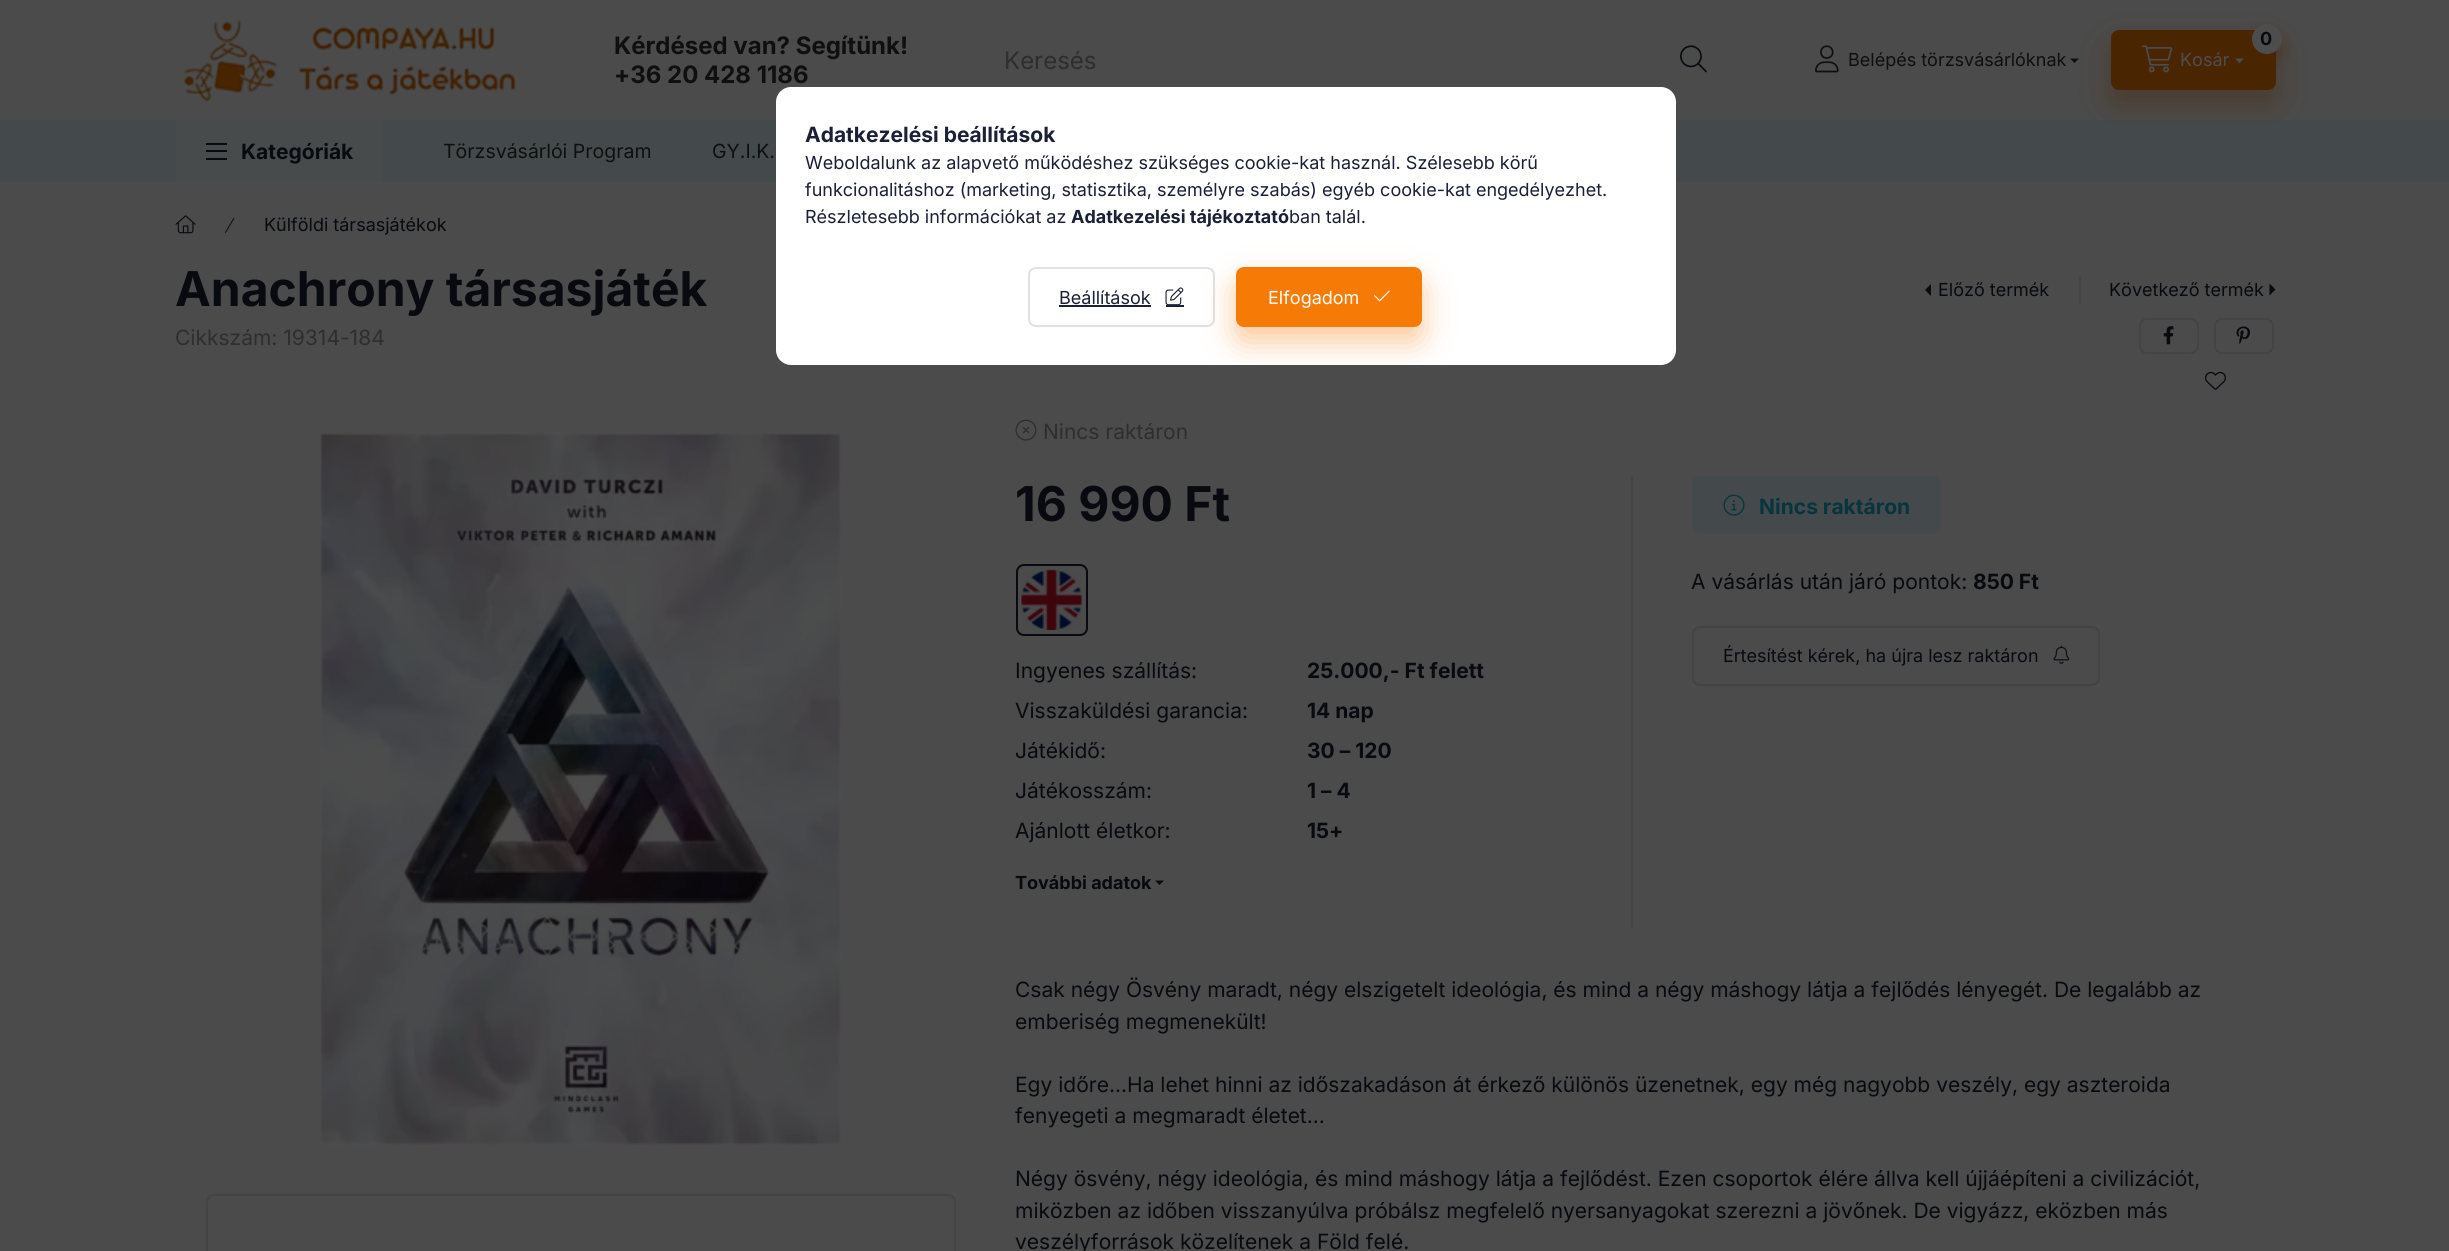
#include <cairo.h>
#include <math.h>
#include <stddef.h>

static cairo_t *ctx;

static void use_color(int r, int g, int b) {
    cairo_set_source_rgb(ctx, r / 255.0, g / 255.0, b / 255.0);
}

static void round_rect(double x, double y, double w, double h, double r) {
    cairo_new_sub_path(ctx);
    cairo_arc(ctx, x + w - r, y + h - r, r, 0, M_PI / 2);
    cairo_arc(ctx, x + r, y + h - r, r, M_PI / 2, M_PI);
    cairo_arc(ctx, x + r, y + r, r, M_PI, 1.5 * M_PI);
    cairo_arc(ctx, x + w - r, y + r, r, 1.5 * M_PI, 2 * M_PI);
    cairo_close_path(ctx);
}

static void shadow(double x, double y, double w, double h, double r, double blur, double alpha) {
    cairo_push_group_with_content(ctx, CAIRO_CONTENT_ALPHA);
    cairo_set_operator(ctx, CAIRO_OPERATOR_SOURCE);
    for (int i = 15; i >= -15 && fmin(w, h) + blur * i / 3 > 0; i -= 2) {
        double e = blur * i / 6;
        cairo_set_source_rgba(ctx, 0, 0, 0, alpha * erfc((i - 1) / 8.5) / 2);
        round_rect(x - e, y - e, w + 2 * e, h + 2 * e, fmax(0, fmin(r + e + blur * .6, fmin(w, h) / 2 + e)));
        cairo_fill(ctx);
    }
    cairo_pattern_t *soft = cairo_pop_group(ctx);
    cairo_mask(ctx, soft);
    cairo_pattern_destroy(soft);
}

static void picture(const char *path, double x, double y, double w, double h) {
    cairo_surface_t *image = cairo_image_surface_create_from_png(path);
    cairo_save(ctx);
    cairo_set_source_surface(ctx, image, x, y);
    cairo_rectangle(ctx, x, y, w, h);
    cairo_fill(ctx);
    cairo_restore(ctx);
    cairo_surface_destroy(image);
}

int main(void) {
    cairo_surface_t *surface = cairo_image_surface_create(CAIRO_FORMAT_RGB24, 2449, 1251);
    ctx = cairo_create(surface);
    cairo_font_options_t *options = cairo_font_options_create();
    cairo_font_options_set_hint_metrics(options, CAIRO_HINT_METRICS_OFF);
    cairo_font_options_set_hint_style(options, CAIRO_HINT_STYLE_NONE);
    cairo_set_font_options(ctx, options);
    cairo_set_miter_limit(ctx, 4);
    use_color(75, 75, 75);
    cairo_paint(ctx);
    picture("img1.png", 183, 20, 333, 82);
    cairo_select_font_face(ctx, "Inter", CAIRO_FONT_SLANT_NORMAL, CAIRO_FONT_WEIGHT_BOLD);
    cairo_set_font_size(ctx, 24);
    use_color(15, 15, 15);
    cairo_move_to(ctx, 614, 54);
    cairo_show_text(ctx, "Kérdésed van? Segítünk!");
    cairo_move_to(ctx, 614, 83);
    cairo_show_text(ctx, "+36 20 428 1186");
    cairo_select_font_face(ctx, "Inter", CAIRO_FONT_SLANT_NORMAL, CAIRO_FONT_WEIGHT_NORMAL);
    use_color(46, 46, 46);
    cairo_move_to(ctx, 1004, 69);
    cairo_show_text(ctx, "Keresés");
    picture("img2.png", 1680, 45, 27, 28);
    picture("img3.png", 1815, 45, 24, 28);
    use_color(68, 74, 76);
    cairo_rectangle(ctx, 0, 120, 2449, 62);
    cairo_fill(ctx);
    use_color(74, 37, 2);
    shadow(2111, 45, 165, 60, 8, 15, 0.4);
    cairo_set_font_size(ctx, 18);
    use_color(15, 15, 15);
    cairo_move_to(ctx, 1848, 66);
    cairo_show_text(ctx, "Belépés törzsvásárlóknak");
    cairo_new_path(ctx);
    cairo_move_to(ctx, 2070, 58.5);
    cairo_line_to(ctx, 2079, 58.5);
    cairo_line_to(ctx, 2074.5, 63);
    cairo_close_path(ctx);
    cairo_fill(ctx);
    use_color(74, 37, 2);
    round_rect(2111, 30, 165, 60, 8);
    cairo_fill(ctx);
    use_color(74, 37, 2);
    shadow(2252, 32, 30, 30, 15, 7.5, 0.4);
    use_color(77, 77, 77);
    cairo_arc(ctx, 2267, 39, 15, 0, 2 * M_PI);
    cairo_fill(ctx);
    cairo_select_font_face(ctx, "Inter", CAIRO_FONT_SLANT_NORMAL, CAIRO_FONT_WEIGHT_BOLD);
    use_color(8, 10, 16);
    cairo_move_to(ctx, 2260, 45);
    cairo_show_text(ctx, "0");
    picture("img4.png", 2142, 45, 31, 28);
    cairo_select_font_face(ctx, "Inter", CAIRO_FONT_SLANT_NORMAL, CAIRO_FONT_WEIGHT_NORMAL);
    use_color(77, 77, 77);
    cairo_move_to(ctx, 2180, 66);
    cairo_show_text(ctx, "Kosár");
    cairo_new_path(ctx);
    cairo_move_to(ctx, 2235, 58.5);
    cairo_line_to(ctx, 2244, 58.5);
    cairo_line_to(ctx, 2239.5, 63);
    cairo_close_path(ctx);
    cairo_fill(ctx);
    use_color(71, 75, 76);
    cairo_rectangle(ctx, 176, 120, 207, 62);
    cairo_fill(ctx);
    use_color(8, 10, 16);
    cairo_rectangle(ctx, 206, 143, 21, 2);
    cairo_fill(ctx);
    cairo_rectangle(ctx, 206, 150, 21, 2);
    cairo_fill(ctx);
    cairo_rectangle(ctx, 206, 158, 21, 2);
    cairo_fill(ctx);
    cairo_select_font_face(ctx, "Inter", CAIRO_FONT_SLANT_NORMAL, CAIRO_FONT_WEIGHT_BOLD);
    cairo_set_font_size(ctx, 21);
    cairo_move_to(ctx, 241, 159);
    cairo_show_text(ctx, "Kategóriák");
    cairo_select_font_face(ctx, "Inter", CAIRO_FONT_SLANT_NORMAL, CAIRO_FONT_WEIGHT_NORMAL);
    cairo_set_font_size(ctx, 19.5);
    use_color(15, 15, 15);
    cairo_move_to(ctx, 443, 158);
    cairo_show_text(ctx, "Törzsvásárlói Program");
    cairo_move_to(ctx, 712, 158);
    cairo_show_text(ctx, "GY.I.K.");
    picture("img5.png", 175, 215, 21, 19);
    picture("img6.png", 225, 217, 10, 16);
    cairo_set_font_size(ctx, 18);
    use_color(8, 10, 16);
    cairo_move_to(ctx, 264, 231);
    cairo_show_text(ctx, "Külföldi társasjátékok");
    cairo_select_font_face(ctx, "Inter", CAIRO_FONT_SLANT_NORMAL, CAIRO_FONT_WEIGHT_BOLD);
    cairo_set_font_size(ctx, 48);
    cairo_move_to(ctx, 175, 306);
    cairo_show_text(ctx, "Anachrony társasjáték");
    cairo_new_path(ctx);
    cairo_move_to(ctx, 1931, 296);
    cairo_line_to(ctx, 1931, 284);
    cairo_line_to(ctx, 1925, 290);
    cairo_close_path(ctx);
    cairo_fill(ctx);
    cairo_select_font_face(ctx, "Inter", CAIRO_FONT_SLANT_NORMAL, CAIRO_FONT_WEIGHT_NORMAL);
    cairo_set_font_size(ctx, 18);
    cairo_move_to(ctx, 1938, 296);
    cairo_show_text(ctx, "Előző termék");
    use_color(68, 68, 68);
    cairo_rectangle(ctx, 2079, 276, 2, 27);
    cairo_fill(ctx);
    use_color(8, 10, 16);
    cairo_move_to(ctx, 2109, 296);
    cairo_show_text(ctx, "Következő termék");
    cairo_new_path(ctx);
    cairo_move_to(ctx, 2269.5, 295.5);
    cairo_line_to(ctx, 2269.5, 283.5);
    cairo_line_to(ctx, 2275.5, 289.5);
    cairo_close_path(ctx);
    cairo_fill(ctx);
    cairo_set_font_size(ctx, 21);
    use_color(46, 46, 46);
    cairo_move_to(ctx, 175, 345);
    cairo_show_text(ctx, "Cikkszám: 19314-184");
    round_rect(2140, 319, 58, 34, 7);
    use_color(68, 68, 68);
    cairo_stroke(ctx);
    picture("img7.png", 2163, 326, 11, 19);
    round_rect(2215, 319, 58, 34, 7);
    cairo_stroke(ctx);
    picture("img8.png", 2236, 326, 14, 18);
    picture("img9.png", 2205, 371, 21, 19);
    picture("img10.png", 319, 432, 523, 714);
    round_rect(207, 1195, 748, 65, 7);
    cairo_stroke(ctx);
    picture("img11.png", 1015, 419, 22, 22);
    use_color(46, 46, 46);
    cairo_move_to(ctx, 1043, 439);
    cairo_show_text(ctx, "Nincs raktáron");
    cairo_select_font_face(ctx, "Inter", CAIRO_FONT_SLANT_NORMAL, CAIRO_FONT_WEIGHT_BOLD);
    cairo_set_font_size(ctx, 48);
    use_color(8, 10, 16);
    cairo_move_to(ctx, 1015, 521);
    cairo_show_text(ctx, "16 990 Ft");
    round_rect(1017, 565, 70, 70, 7);
    cairo_stroke(ctx);
    picture("img12.png", 1021, 569, 61, 61);
    cairo_select_font_face(ctx, "Inter", CAIRO_FONT_SLANT_NORMAL, CAIRO_FONT_WEIGHT_NORMAL);
    cairo_set_font_size(ctx, 21);
    cairo_move_to(ctx, 1015, 678);
    cairo_show_text(ctx, "Ingyenes szállítás:");
    cairo_select_font_face(ctx, "Inter", CAIRO_FONT_SLANT_NORMAL, CAIRO_FONT_WEIGHT_BOLD);
    cairo_move_to(ctx, 1307, 678);
    cairo_show_text(ctx, "25.000,- Ft felett");
    cairo_select_font_face(ctx, "Inter", CAIRO_FONT_SLANT_NORMAL, CAIRO_FONT_WEIGHT_NORMAL);
    cairo_move_to(ctx, 1015, 718);
    cairo_show_text(ctx, "Visszaküldési garancia:");
    cairo_select_font_face(ctx, "Inter", CAIRO_FONT_SLANT_NORMAL, CAIRO_FONT_WEIGHT_BOLD);
    cairo_move_to(ctx, 1307, 718);
    cairo_show_text(ctx, "14 nap");
    cairo_select_font_face(ctx, "Inter", CAIRO_FONT_SLANT_NORMAL, CAIRO_FONT_WEIGHT_NORMAL);
    cairo_move_to(ctx, 1015, 758);
    cairo_show_text(ctx, "Játékidő:");
    cairo_select_font_face(ctx, "Inter", CAIRO_FONT_SLANT_NORMAL, CAIRO_FONT_WEIGHT_BOLD);
    cairo_move_to(ctx, 1307, 758);
    cairo_show_text(ctx, "30 – 120");
    cairo_select_font_face(ctx, "Inter", CAIRO_FONT_SLANT_NORMAL, CAIRO_FONT_WEIGHT_NORMAL);
    cairo_move_to(ctx, 1015, 798);
    cairo_show_text(ctx, "Játékosszám:");
    cairo_select_font_face(ctx, "Inter", CAIRO_FONT_SLANT_NORMAL, CAIRO_FONT_WEIGHT_BOLD);
    cairo_move_to(ctx, 1307, 798);
    cairo_show_text(ctx, "1 – 4");
    cairo_select_font_face(ctx, "Inter", CAIRO_FONT_SLANT_NORMAL, CAIRO_FONT_WEIGHT_NORMAL);
    cairo_move_to(ctx, 1015, 838);
    cairo_show_text(ctx, "Ajánlott életkor:");
    cairo_select_font_face(ctx, "Inter", CAIRO_FONT_SLANT_NORMAL, CAIRO_FONT_WEIGHT_BOLD);
    cairo_move_to(ctx, 1307, 838);
    cairo_show_text(ctx, "15+");
    cairo_set_font_size(ctx, 18);
    cairo_move_to(ctx, 1015, 889);
    cairo_show_text(ctx, "További adatok");
    cairo_new_path(ctx);
    cairo_move_to(ctx, 1155, 880.5);
    cairo_line_to(ctx, 1164, 880.5);
    cairo_line_to(ctx, 1159.5, 885);
    cairo_close_path(ctx);
    cairo_fill(ctx);
    use_color(68, 68, 68);
    cairo_rectangle(ctx, 1631, 476, 2, 453);
    cairo_fill(ctx);
    use_color(68, 74, 76);
    round_rect(1692, 476, 249, 58, 8);
    cairo_fill(ctx);
    picture("img13.png", 1723, 494, 22, 22);
    cairo_set_font_size(ctx, 21);
    use_color(7, 52, 61);
    cairo_move_to(ctx, 1759, 514);
    cairo_show_text(ctx, "Nincs raktáron");
    cairo_select_font_face(ctx, "Inter", CAIRO_FONT_SLANT_NORMAL, CAIRO_FONT_WEIGHT_NORMAL);
    use_color(8, 10, 16);
    cairo_move_to(ctx, 1691, 589);
    cairo_show_text(ctx, "A vásárlás után járó pontok:");
    cairo_select_font_face(ctx, "Inter", CAIRO_FONT_SLANT_NORMAL, CAIRO_FONT_WEIGHT_BOLD);
    cairo_move_to(ctx, 1973, 589);
    cairo_show_text(ctx, "850 Ft");
    round_rect(1693, 627, 406, 58, 7);
    use_color(68, 68, 68);
    cairo_stroke(ctx);
    cairo_select_font_face(ctx, "Inter", CAIRO_FONT_SLANT_NORMAL, CAIRO_FONT_WEIGHT_NORMAL);
    cairo_set_font_size(ctx, 18);
    use_color(8, 10, 16);
    cairo_move_to(ctx, 1723, 662);
    cairo_show_text(ctx, "Értesítést kérek, ha újra lesz raktáron");
    picture("img14.png", 2053, 645, 17, 19);
    cairo_set_font_size(ctx, 21);
    cairo_move_to(ctx, 1015, 997);
    cairo_show_text(ctx, "Csak négy Ösvény maradt, négy elszigetelt ideológia, és mind a négy máshogy látja a fejlődés lényegét. De legalább az");
    cairo_move_to(ctx, 1015, 1029);
    cairo_show_text(ctx, "emberiség megmenekült!");
    cairo_move_to(ctx, 1015, 1092);
    cairo_show_text(ctx, "Egy időre...Ha lehet hinni az időszakadáson át érkező különös üzenetnek, egy még nagyobb veszély, egy aszteroida");
    cairo_move_to(ctx, 1015, 1123);
    cairo_show_text(ctx, "fenyegeti a megmaradt életet...");
    cairo_move_to(ctx, 1015, 1186);
    cairo_show_text(ctx, "Négy ösvény, négy ideológia, és mind máshogy látja a fejlődést. Ezen csoportok élére állva kell újjáépíteni a civilizációt,");
    cairo_move_to(ctx, 1015, 1218);
    cairo_show_text(ctx, "miközben az időben visszanyúlva próbálsz megfelelő nyersanyagokat szerezni a jövőnek. De vigyázz, eközben más");
    cairo_move_to(ctx, 1015, 1249);
    cairo_show_text(ctx, "veszélyforrások közelítenek a Föld felé.");
    use_color(255, 255, 255);
    round_rect(776, 87, 900, 278, 15);
    cairo_fill(ctx);
    cairo_select_font_face(ctx, "Inter", CAIRO_FONT_SLANT_NORMAL, CAIRO_FONT_WEIGHT_BOLD);
    use_color(27, 32, 54);
    cairo_move_to(ctx, 805, 142);
    cairo_show_text(ctx, "Adatkezelési beállítások");
    cairo_select_font_face(ctx, "Inter", CAIRO_FONT_SLANT_NORMAL, CAIRO_FONT_WEIGHT_NORMAL);
    cairo_set_font_size(ctx, 18);
    cairo_move_to(ctx, 805, 169);
    cairo_show_text(ctx, "Weboldalunk az alapvető működéshez szükséges cookie-kat használ. Szélesebb körű");
    cairo_move_to(ctx, 805, 196);
    cairo_show_text(ctx, "funkcionalitáshoz (marketing, statisztika, személyre szabás) egyéb cookie-kat engedélyezhet.");
    cairo_move_to(ctx, 805, 223);
    cairo_show_text(ctx, "Részletesebb információkat az");
    cairo_select_font_face(ctx, "Inter", CAIRO_FONT_SLANT_NORMAL, CAIRO_FONT_WEIGHT_BOLD);
    cairo_move_to(ctx, 1071, 223);
    cairo_show_text(ctx, "Adatkezelési tájékoztató");
    cairo_select_font_face(ctx, "Inter", CAIRO_FONT_SLANT_NORMAL, CAIRO_FONT_WEIGHT_NORMAL);
    cairo_move_to(ctx, 1289, 223);
    cairo_show_text(ctx, "ban talál.");
    round_rect(1029, 268, 185, 58, 7);
    use_color(225, 225, 225);
    cairo_stroke(ctx);
    use_color(27, 32, 54);
    cairo_move_to(ctx, 1059, 304);
    cairo_show_text(ctx, "Beállítások");
    cairo_rectangle(ctx, 1059, 305, 92, 2);
    cairo_fill(ctx);
    picture("img15.png", 1165, 287, 19, 18);
    cairo_rectangle(ctx, 1166, 305, 18, 2);
    cairo_fill(ctx);
    cairo_save(ctx);
    round_rect(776, 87, 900, 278, 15);
    cairo_clip(ctx);
    use_color(246, 122, 6);
    shadow(1236, 282, 186, 60, 8, 15, 0.4);
    cairo_restore(ctx);
    use_color(246, 122, 6);
    round_rect(1237, 268, 184, 58, 7);
    cairo_fill_preserve(ctx);
    cairo_stroke(ctx);
    use_color(255, 255, 255);
    cairo_move_to(ctx, 1268, 304);
    cairo_show_text(ctx, "Elfogadom");
    picture("img16.png", 1374, 290, 16, 12);
    cairo_surface_write_to_png(surface, "result.png");
    cairo_font_options_destroy(options);
    cairo_destroy(ctx);
    cairo_surface_destroy(surface);
    return 0;
}
